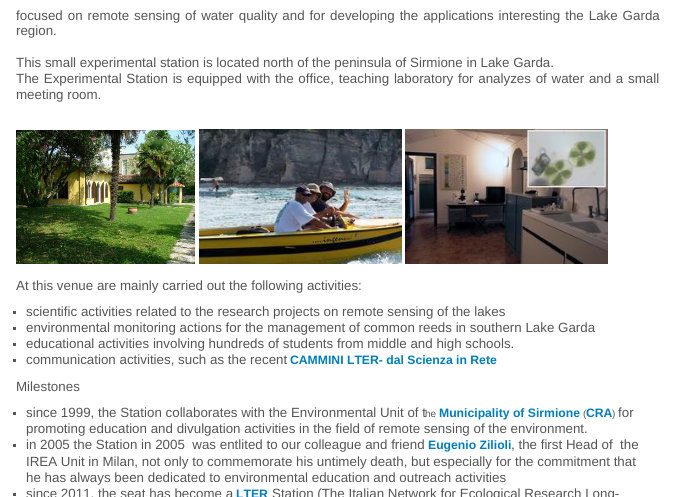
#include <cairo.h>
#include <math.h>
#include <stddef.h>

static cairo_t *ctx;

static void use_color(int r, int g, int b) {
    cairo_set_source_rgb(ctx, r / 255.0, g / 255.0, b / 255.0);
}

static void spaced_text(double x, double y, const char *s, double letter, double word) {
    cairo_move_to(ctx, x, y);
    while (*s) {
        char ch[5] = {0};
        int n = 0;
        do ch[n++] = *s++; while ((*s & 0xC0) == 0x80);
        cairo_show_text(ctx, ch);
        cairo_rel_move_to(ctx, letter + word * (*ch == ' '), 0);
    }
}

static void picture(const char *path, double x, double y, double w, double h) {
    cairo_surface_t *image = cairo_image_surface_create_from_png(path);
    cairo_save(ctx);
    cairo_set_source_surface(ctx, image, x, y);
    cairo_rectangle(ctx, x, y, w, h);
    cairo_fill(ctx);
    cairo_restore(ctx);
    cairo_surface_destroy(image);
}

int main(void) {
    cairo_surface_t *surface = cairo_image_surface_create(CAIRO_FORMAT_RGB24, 674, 497);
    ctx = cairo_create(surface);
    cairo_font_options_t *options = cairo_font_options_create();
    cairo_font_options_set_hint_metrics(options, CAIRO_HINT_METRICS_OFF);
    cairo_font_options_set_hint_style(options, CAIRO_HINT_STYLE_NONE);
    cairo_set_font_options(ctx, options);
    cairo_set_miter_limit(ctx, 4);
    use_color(255, 255, 255);
    cairo_paint(ctx);
    cairo_select_font_face(ctx, "Liberation Sans", CAIRO_FONT_SLANT_NORMAL, CAIRO_FONT_WEIGHT_NORMAL);
    cairo_set_font_size(ctx, 13.35);
    use_color(85, 85, 85);
    spaced_text(16, 20, "focused on remote sensing of water quality and for developing the applications interesting the Lake Garda", 0, 1.25);
    cairo_move_to(ctx, 16, 35);
    cairo_show_text(ctx, "region.");
    cairo_move_to(ctx, 16, 67);
    cairo_show_text(ctx, "This small experimental station is located north of the peninsula of Sirmione in Lake Garda.");
    spaced_text(16, 83, "The Experimental Station is equipped with the office, teaching laboratory for analyzes of water and a small", 0, 1);
    cairo_move_to(ctx, 16, 99);
    cairo_show_text(ctx, "meeting room.");
    picture("img1.png", 16, 130, 179, 134);
    picture("img2.png", 199, 129, 203, 135);
    picture("img3.png", 405, 129, 203, 135);
    cairo_move_to(ctx, 16, 290);
    cairo_show_text(ctx, "At this venue are mainly carried out the following activities:");
    cairo_rectangle(ctx, 13, 311, 3, 3);
    cairo_fill(ctx);
    cairo_move_to(ctx, 26, 316);
    cairo_show_text(ctx, "scientific activities related to the research projects on remote sensing of the lakes");
    cairo_rectangle(ctx, 13, 327, 3, 3);
    cairo_fill(ctx);
    cairo_move_to(ctx, 26, 332);
    cairo_show_text(ctx, "environmental monitoring actions for the management of common reeds in southern Lake Garda");
    cairo_rectangle(ctx, 13, 343, 3, 3);
    cairo_fill(ctx);
    cairo_move_to(ctx, 26, 348);
    cairo_show_text(ctx, "educational activities involving hundreds of students from middle and high schools.");
    cairo_rectangle(ctx, 13, 359, 3, 3);
    cairo_fill(ctx);
    cairo_move_to(ctx, 26, 364);
    cairo_show_text(ctx, "communication activities, such as the recent");
    cairo_select_font_face(ctx, "Liberation Sans", CAIRO_FONT_SLANT_NORMAL, CAIRO_FONT_WEIGHT_BOLD);
    cairo_set_font_size(ctx, 12.2);
    use_color(0, 126, 186);
    cairo_move_to(ctx, 290, 364);
    cairo_show_text(ctx, "CAMMINI LTER- dal Scienza in Rete");
    cairo_select_font_face(ctx, "Liberation Sans", CAIRO_FONT_SLANT_NORMAL, CAIRO_FONT_WEIGHT_NORMAL);
    cairo_set_font_size(ctx, 13.35);
    use_color(85, 85, 85);
    cairo_move_to(ctx, 16, 391);
    cairo_show_text(ctx, "Milestones");
    cairo_rectangle(ctx, 13, 412, 3, 3);
    cairo_fill(ctx);
    cairo_move_to(ctx, 26, 417);
    cairo_show_text(ctx, "since 1999, the Station collaborates with the Environmental Unit of t");
    cairo_set_font_size(ctx, 10);
    cairo_move_to(ctx, 425, 417);
    cairo_show_text(ctx, "he");
    cairo_select_font_face(ctx, "Liberation Sans", CAIRO_FONT_SLANT_NORMAL, CAIRO_FONT_WEIGHT_BOLD);
    cairo_set_font_size(ctx, 12.2);
    use_color(0, 126, 186);
    cairo_move_to(ctx, 439, 417);
    cairo_show_text(ctx, "Municipality of Sirmione");
    cairo_select_font_face(ctx, "Liberation Sans", CAIRO_FONT_SLANT_NORMAL, CAIRO_FONT_WEIGHT_NORMAL);
    cairo_set_font_size(ctx, 10);
    use_color(85, 85, 85);
    cairo_move_to(ctx, 583, 417);
    cairo_show_text(ctx, "(");
    cairo_select_font_face(ctx, "Liberation Sans", CAIRO_FONT_SLANT_NORMAL, CAIRO_FONT_WEIGHT_BOLD);
    cairo_set_font_size(ctx, 12.2);
    use_color(0, 126, 186);
    cairo_move_to(ctx, 586, 417);
    cairo_show_text(ctx, "CRA");
    cairo_select_font_face(ctx, "Liberation Sans", CAIRO_FONT_SLANT_NORMAL, CAIRO_FONT_WEIGHT_NORMAL);
    cairo_set_font_size(ctx, 10);
    use_color(85, 85, 85);
    cairo_move_to(ctx, 612, 417);
    cairo_show_text(ctx, ")");
    cairo_set_font_size(ctx, 13.35);
    cairo_move_to(ctx, 618, 417);
    cairo_show_text(ctx, "for");
    cairo_move_to(ctx, 26, 433);
    cairo_show_text(ctx, "promoting education and divulgation activities in the field of remote sensing of the environment.");
    cairo_rectangle(ctx, 13, 444, 3, 3);
    cairo_fill(ctx);
    cairo_move_to(ctx, 26, 449);
    cairo_show_text(ctx, "in 2005 the Station in 2005  was entlited to our colleague and friend");
    cairo_select_font_face(ctx, "Liberation Sans", CAIRO_FONT_SLANT_NORMAL, CAIRO_FONT_WEIGHT_BOLD);
    cairo_set_font_size(ctx, 12.2);
    use_color(0, 126, 186);
    cairo_move_to(ctx, 428, 449);
    cairo_show_text(ctx, "Eugenio Zilioli");
    cairo_select_font_face(ctx, "Liberation Sans", CAIRO_FONT_SLANT_NORMAL, CAIRO_FONT_WEIGHT_NORMAL);
    cairo_set_font_size(ctx, 13.35);
    use_color(85, 85, 85);
    cairo_move_to(ctx, 511, 449);
    cairo_show_text(ctx, ", the first Head of  the");
    cairo_move_to(ctx, 26, 466);
    cairo_show_text(ctx, "IREA Unit in Milan, not only to commemorate his untimely death, but especially for the commitment that");
    cairo_move_to(ctx, 26, 482);
    cairo_show_text(ctx, "he has always been dedicated to environmental education and outreach activities");
    cairo_rectangle(ctx, 13, 493, 3, 3);
    cairo_fill(ctx);
    cairo_move_to(ctx, 26, 498);
    cairo_show_text(ctx, "since 2011, the seat has become a");
    cairo_select_font_face(ctx, "Liberation Sans", CAIRO_FONT_SLANT_NORMAL, CAIRO_FONT_WEIGHT_BOLD);
    cairo_set_font_size(ctx, 12.2);
    use_color(0, 126, 186);
    cairo_move_to(ctx, 236, 498);
    cairo_show_text(ctx, "LTER");
    cairo_select_font_face(ctx, "Liberation Sans", CAIRO_FONT_SLANT_NORMAL, CAIRO_FONT_WEIGHT_NORMAL);
    cairo_set_font_size(ctx, 13.35);
    use_color(85, 85, 85);
    cairo_move_to(ctx, 272, 498);
    cairo_show_text(ctx, "Station (The Italian Network for Ecological Research Long-");
    cairo_surface_write_to_png(surface, "result.png");
    cairo_font_options_destroy(options);
    cairo_destroy(ctx);
    cairo_surface_destroy(surface);
    return 0;
}
